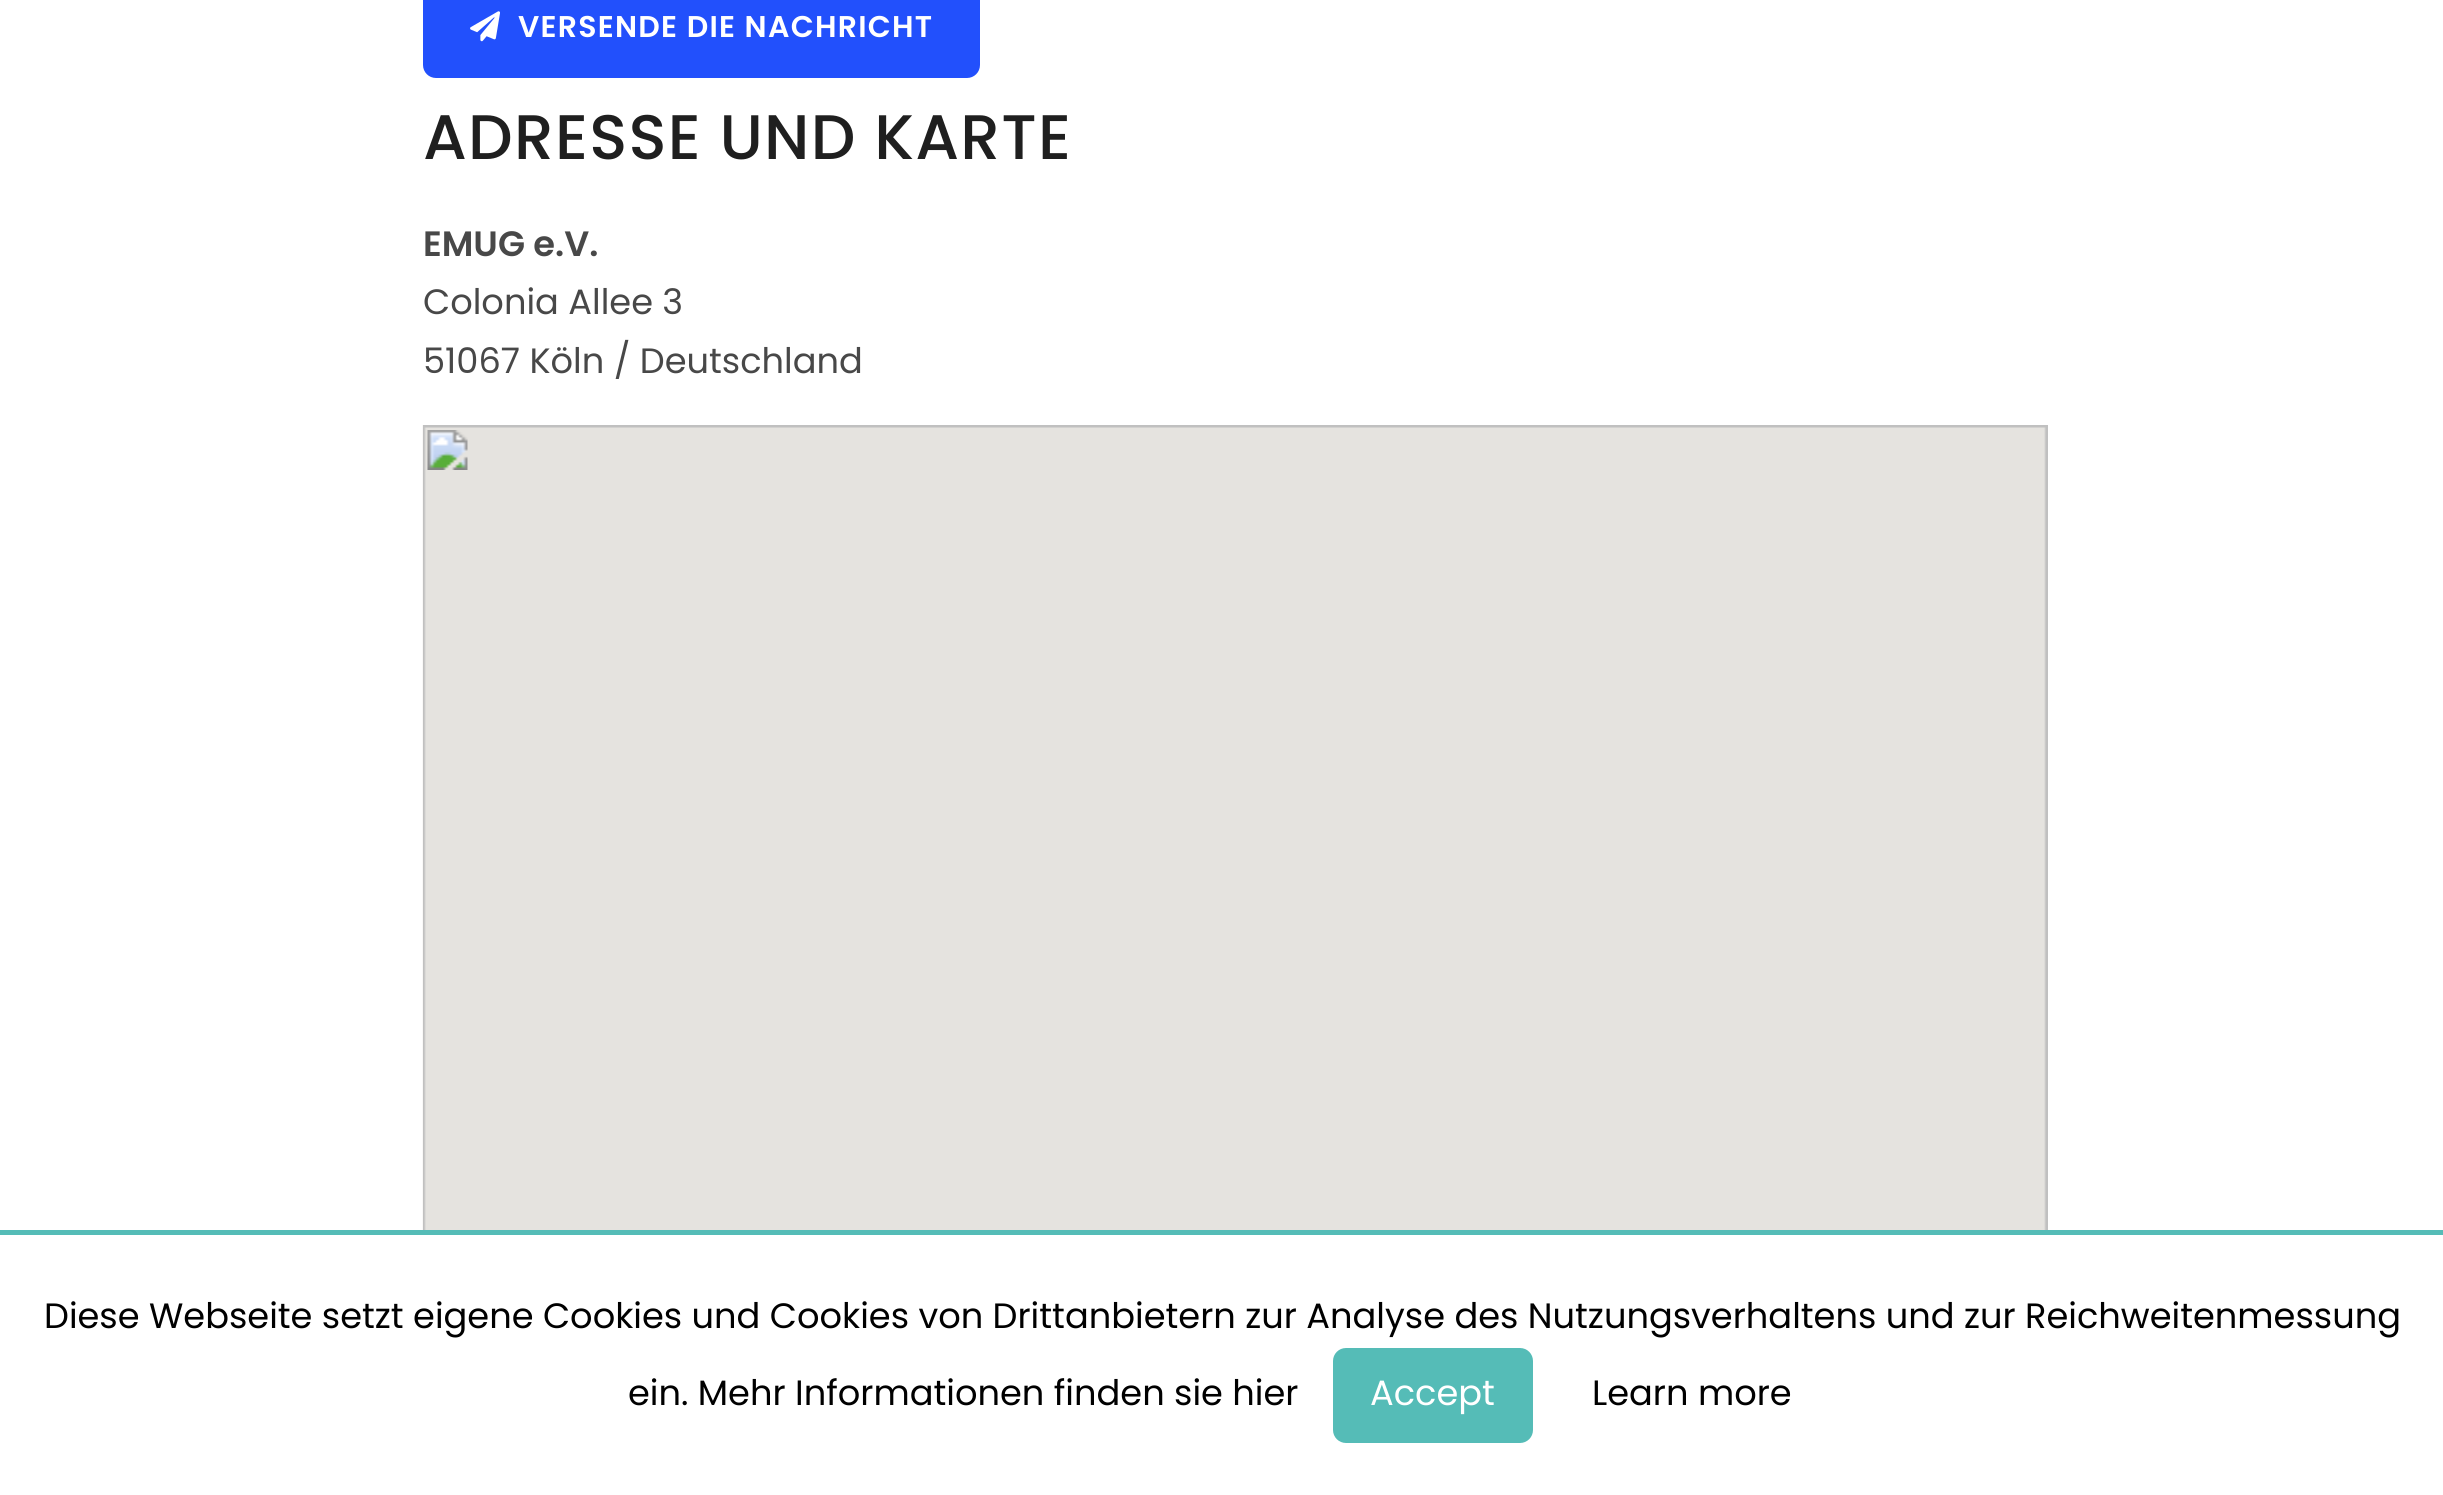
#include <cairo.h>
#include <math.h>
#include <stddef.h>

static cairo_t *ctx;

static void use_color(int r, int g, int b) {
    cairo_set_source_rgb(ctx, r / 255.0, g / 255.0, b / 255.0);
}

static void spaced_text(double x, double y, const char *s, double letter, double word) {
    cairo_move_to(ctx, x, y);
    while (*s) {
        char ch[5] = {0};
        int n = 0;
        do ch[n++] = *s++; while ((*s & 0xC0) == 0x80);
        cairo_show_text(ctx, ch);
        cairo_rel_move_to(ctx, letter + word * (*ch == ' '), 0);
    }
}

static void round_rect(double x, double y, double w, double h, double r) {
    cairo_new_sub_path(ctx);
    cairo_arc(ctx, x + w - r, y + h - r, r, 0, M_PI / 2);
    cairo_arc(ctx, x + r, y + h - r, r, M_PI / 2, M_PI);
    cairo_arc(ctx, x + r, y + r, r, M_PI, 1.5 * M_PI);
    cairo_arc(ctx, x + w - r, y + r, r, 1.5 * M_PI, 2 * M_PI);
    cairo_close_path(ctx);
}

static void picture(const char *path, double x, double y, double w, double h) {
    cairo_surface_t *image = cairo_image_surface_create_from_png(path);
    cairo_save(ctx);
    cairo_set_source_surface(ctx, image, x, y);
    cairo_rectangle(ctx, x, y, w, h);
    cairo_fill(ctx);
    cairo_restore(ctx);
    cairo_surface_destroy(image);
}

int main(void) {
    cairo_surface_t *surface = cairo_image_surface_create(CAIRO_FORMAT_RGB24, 2443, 1495);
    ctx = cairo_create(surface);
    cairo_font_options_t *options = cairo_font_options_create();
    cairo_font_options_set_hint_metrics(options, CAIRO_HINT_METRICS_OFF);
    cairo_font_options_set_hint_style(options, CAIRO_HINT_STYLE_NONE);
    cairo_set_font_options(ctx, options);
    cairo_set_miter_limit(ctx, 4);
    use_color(255, 255, 255);
    cairo_paint(ctx);
    use_color(34, 80, 252);
    round_rect(424.5, -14.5, 554, 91, 11.5);
    cairo_fill_preserve(ctx);
    cairo_set_line_width(ctx, 3);
    cairo_stroke(ctx);
    picture("img1.png", 470, 11, 30, 31);
    cairo_select_font_face(ctx, "Poppins SemiBold", CAIRO_FONT_SLANT_NORMAL, CAIRO_FONT_WEIGHT_NORMAL);
    cairo_set_font_size(ctx, 30);
    use_color(255, 255, 255);
    spaced_text(518, 37, "VERSENDE DIE NACHRICHT", 1.25, 0);
    cairo_select_font_face(ctx, "Poppins Medium", CAIRO_FONT_SLANT_NORMAL, CAIRO_FONT_WEIGHT_NORMAL);
    cairo_set_font_size(ctx, 62.9);
    use_color(31, 31, 31);
    spaced_text(423, 159, "ADRESSE UND KARTE", 1.25, 0);
    cairo_select_font_face(ctx, "Poppins SemiBold", CAIRO_FONT_SLANT_NORMAL, CAIRO_FONT_WEIGHT_NORMAL);
    cairo_set_font_size(ctx, 35.2);
    use_color(72, 72, 72);
    cairo_move_to(ctx, 423, 256);
    cairo_show_text(ctx, "EMUG e.V.");
    cairo_select_font_face(ctx, "Poppins", CAIRO_FONT_SLANT_NORMAL, CAIRO_FONT_WEIGHT_NORMAL);
    cairo_move_to(ctx, 423, 314);
    cairo_show_text(ctx, "Colonia Allee 3");
    cairo_move_to(ctx, 423, 373);
    cairo_show_text(ctx, "51067 Köln / Deutschland");
    picture("img2.png", 422, 425, 1626, 805);
    use_color(85, 188, 183);
    cairo_rectangle(ctx, 0, 1230, 2443, 5);
    cairo_fill(ctx);
    use_color(0, 0, 0);
    cairo_move_to(ctx, 44, 1328);
    cairo_show_text(ctx, "Diese Webseite setzt eigene Cookies und Cookies von Drittanbietern zur Analyse des Nutzungsverhaltens und zur Reichweitenmessung");
    cairo_move_to(ctx, 628, 1405);
    cairo_show_text(ctx, "ein. Mehr Informationen finden sie hier");
    use_color(85, 188, 183);
    round_rect(1333, 1348, 200, 95, 13);
    cairo_fill(ctx);
    use_color(255, 255, 255);
    cairo_move_to(ctx, 1370, 1405);
    cairo_show_text(ctx, "Accept");
    use_color(0, 0, 0);
    cairo_move_to(ctx, 1592, 1405);
    cairo_show_text(ctx, "Learn more");
    cairo_surface_write_to_png(surface, "result.png");
    cairo_font_options_destroy(options);
    cairo_destroy(ctx);
    cairo_surface_destroy(surface);
    return 0;
}
